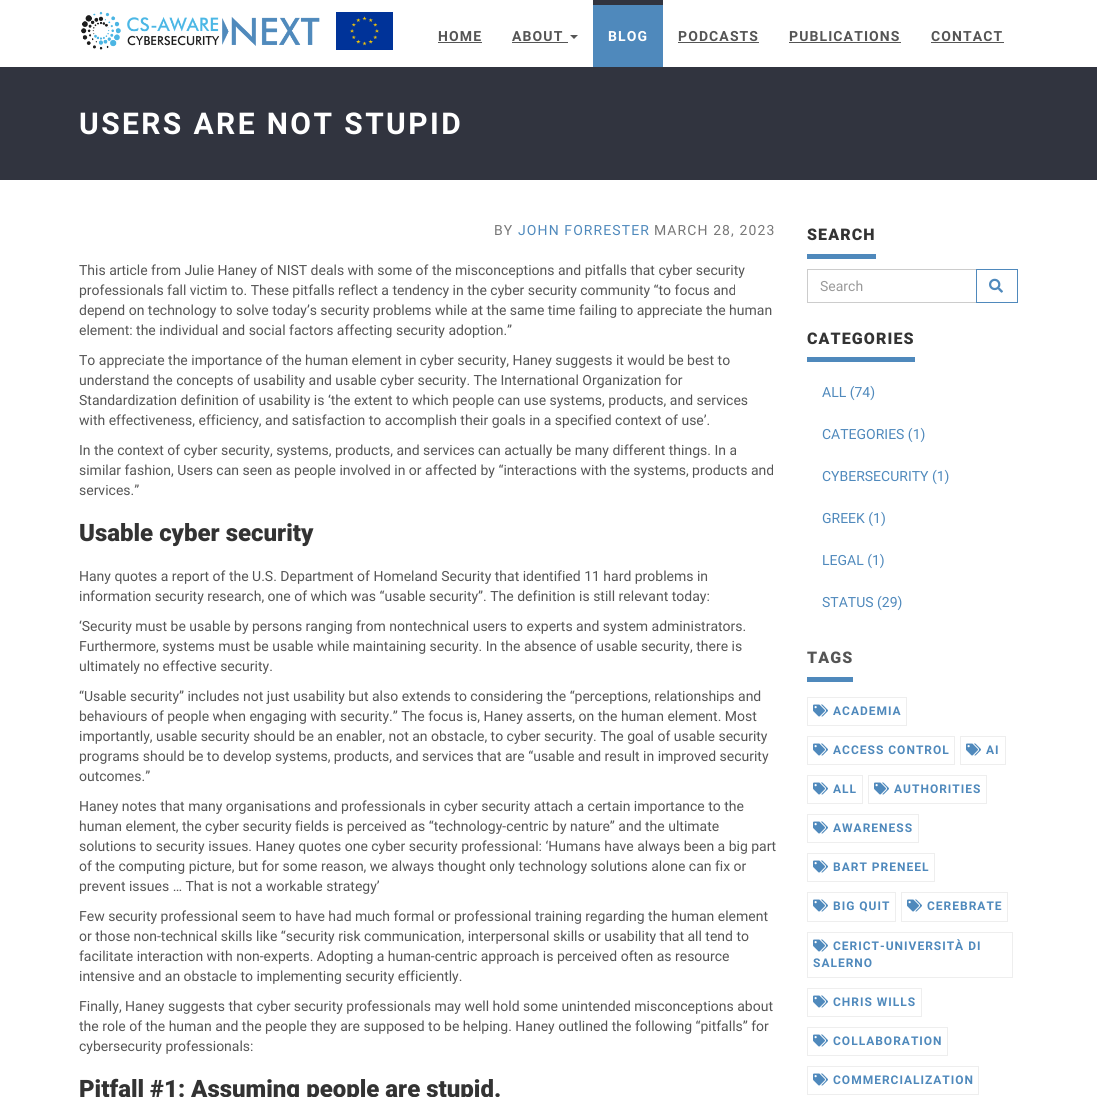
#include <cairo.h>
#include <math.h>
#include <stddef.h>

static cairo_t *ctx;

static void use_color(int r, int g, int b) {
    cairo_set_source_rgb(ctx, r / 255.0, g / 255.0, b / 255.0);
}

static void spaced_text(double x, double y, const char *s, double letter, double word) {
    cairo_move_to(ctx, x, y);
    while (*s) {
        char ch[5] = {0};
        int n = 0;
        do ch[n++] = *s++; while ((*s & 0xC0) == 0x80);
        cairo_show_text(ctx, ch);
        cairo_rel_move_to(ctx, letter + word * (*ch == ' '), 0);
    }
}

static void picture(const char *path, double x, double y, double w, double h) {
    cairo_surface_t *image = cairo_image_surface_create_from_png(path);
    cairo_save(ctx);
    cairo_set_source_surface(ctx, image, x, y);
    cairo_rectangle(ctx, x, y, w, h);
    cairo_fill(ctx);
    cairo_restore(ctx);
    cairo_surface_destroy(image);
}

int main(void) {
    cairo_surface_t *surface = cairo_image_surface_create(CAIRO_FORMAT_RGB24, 1097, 1097);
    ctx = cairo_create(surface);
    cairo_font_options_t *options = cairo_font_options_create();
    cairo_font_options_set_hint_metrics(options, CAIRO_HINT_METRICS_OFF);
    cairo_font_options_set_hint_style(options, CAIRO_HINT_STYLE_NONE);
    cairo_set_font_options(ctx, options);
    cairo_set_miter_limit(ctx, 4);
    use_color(255, 255, 255);
    cairo_paint(ctx);
    picture("img1.png", 81, 11, 239, 39);
    picture("img2.png", 336, 12, 57, 38);
    cairo_select_font_face(ctx, "Roboto", CAIRO_FONT_SLANT_NORMAL, CAIRO_FONT_WEIGHT_BOLD);
    cairo_set_font_size(ctx, 14);
    use_color(85, 85, 85);
    spaced_text(438, 41, "HOME", 1.1, 0);
    cairo_rectangle(ctx, 438, 42, 44, 1);
    cairo_fill(ctx);
    spaced_text(512, 41, "ABOUT", 1.1, 0);
    cairo_rectangle(ctx, 512, 42, 56, 1);
    cairo_fill(ctx);
    cairo_new_path(ctx);
    cairo_move_to(ctx, 570, 35);
    cairo_line_to(ctx, 578, 35);
    cairo_line_to(ctx, 574, 39);
    cairo_close_path(ctx);
    cairo_fill(ctx);
    use_color(79, 137, 188);
    cairo_rectangle(ctx, 593, 5, 70, 62);
    cairo_fill(ctx);
    use_color(49, 52, 63);
    cairo_rectangle(ctx, 593, 0, 70, 5);
    cairo_fill(ctx);
    use_color(255, 255, 255);
    spaced_text(608, 41, "BLOG", 1.1, 0);
    use_color(85, 85, 85);
    spaced_text(678, 41, "PODCASTS", 1.1, 0);
    cairo_rectangle(ctx, 678, 42, 81, 1);
    cairo_fill(ctx);
    spaced_text(789, 41, "PUBLICATIONS", 1.1, 0);
    cairo_rectangle(ctx, 789, 42, 112, 1);
    cairo_fill(ctx);
    spaced_text(931, 41, "CONTACT", 1.1, 0);
    cairo_rectangle(ctx, 931, 42, 73, 1);
    cairo_fill(ctx);
    use_color(49, 52, 63);
    cairo_rectangle(ctx, 0, 67, 1097, 113);
    cairo_fill(ctx);
    cairo_set_font_size(ctx, 30);
    use_color(255, 255, 255);
    spaced_text(79, 134, "USERS ARE NOT STUPID", 2.4, 0);
    cairo_select_font_face(ctx, "Roboto", CAIRO_FONT_SLANT_NORMAL, CAIRO_FONT_WEIGHT_NORMAL);
    cairo_set_font_size(ctx, 14);
    use_color(119, 119, 119);
    spaced_text(494, 235, "BY", 1.1, 0);
    use_color(79, 137, 188);
    spaced_text(518, 235, "JOHN FORRESTER", 1.1, 0);
    use_color(119, 119, 119);
    spaced_text(654, 235, "MARCH 28, 2023", 1.1, 0);
    use_color(85, 85, 85);
    cairo_move_to(ctx, 79, 275);
    cairo_show_text(ctx, "This article from Julie Haney of NIST deals with some of the misconceptions and pitfalls that cyber security");
    cairo_move_to(ctx, 79, 295);
    cairo_show_text(ctx, "professionals fall victim to. These pitfalls reflect a tendency in the cyber security community “to focus and");
    cairo_move_to(ctx, 79, 315);
    cairo_show_text(ctx, "depend on technology to solve today’s security problems while at the same time failing to appreciate the human");
    cairo_move_to(ctx, 79, 335);
    cairo_show_text(ctx, "element: the individual and social factors affecting security adoption.”");
    cairo_move_to(ctx, 79, 365);
    cairo_show_text(ctx, "To appreciate the importance of the human element in cyber security, Haney suggests it would be best to");
    cairo_move_to(ctx, 79, 385);
    cairo_show_text(ctx, "understand the concepts of usability and usable cyber security. The International Organization for");
    cairo_move_to(ctx, 79, 405);
    cairo_show_text(ctx, "Standardization definition of usability is ‘the extent to which people can use systems, products, and services");
    cairo_move_to(ctx, 79, 425);
    cairo_show_text(ctx, "with effectiveness, efficiency, and satisfaction to accomplish their goals in a specified context of use’.");
    cairo_move_to(ctx, 79, 455);
    cairo_show_text(ctx, "In the context of cyber security, systems, products, and services can actually be many different things. In a");
    cairo_move_to(ctx, 79, 475);
    cairo_show_text(ctx, "similar fashion, Users can seen as people involved in or affected by “interactions with the systems, products and");
    cairo_move_to(ctx, 79, 495);
    cairo_show_text(ctx, "services.”");
    cairo_select_font_face(ctx, "Roboto Black", CAIRO_FONT_SLANT_NORMAL, CAIRO_FONT_WEIGHT_NORMAL);
    cairo_set_font_size(ctx, 24);
    use_color(51, 51, 51);
    cairo_move_to(ctx, 79, 541);
    cairo_show_text(ctx, "Usable cyber security");
    cairo_select_font_face(ctx, "Roboto", CAIRO_FONT_SLANT_NORMAL, CAIRO_FONT_WEIGHT_NORMAL);
    cairo_set_font_size(ctx, 14);
    use_color(85, 85, 85);
    cairo_move_to(ctx, 79, 581);
    cairo_show_text(ctx, "Hany quotes a report of the U.S. Department of Homeland Security that identified 11 hard problems in");
    cairo_move_to(ctx, 79, 601);
    cairo_show_text(ctx, "information security research, one of which was “usable security”. The definition is still relevant today:");
    cairo_move_to(ctx, 79, 631);
    cairo_show_text(ctx, "‘Security must be usable by persons ranging from nontechnical users to experts and system administrators.");
    cairo_move_to(ctx, 79, 651);
    cairo_show_text(ctx, "Furthermore, systems must be usable while maintaining security. In the absence of usable security, there is");
    cairo_move_to(ctx, 79, 671);
    cairo_show_text(ctx, "ultimately no effective security.");
    cairo_move_to(ctx, 79, 701);
    cairo_show_text(ctx, "“Usable security” includes not just usability but also extends to considering the “perceptions, relationships and");
    cairo_move_to(ctx, 79, 721);
    cairo_show_text(ctx, "behaviours of people when engaging with security.” The focus is, Haney asserts, on the human element. Most");
    cairo_move_to(ctx, 79, 741);
    cairo_show_text(ctx, "importantly, usable security should be an enabler, not an obstacle, to cyber security. The goal of usable security");
    cairo_move_to(ctx, 79, 761);
    cairo_show_text(ctx, "programs should be to develop systems, products, and services that are “usable and result in improved security");
    cairo_move_to(ctx, 79, 781);
    cairo_show_text(ctx, "outcomes.”");
    cairo_move_to(ctx, 79, 811);
    cairo_show_text(ctx, "Haney notes that many organisations and professionals in cyber security attach a certain importance to the");
    cairo_move_to(ctx, 79, 831);
    cairo_show_text(ctx, "human element, the cyber security fields is perceived as “technology-centric by nature” and the ultimate");
    cairo_move_to(ctx, 79, 851);
    cairo_show_text(ctx, "solutions to security issues. Haney quotes one cyber security professional: ‘Humans have always been a big part");
    cairo_move_to(ctx, 79, 871);
    cairo_show_text(ctx, "of the computing picture, but for some reason, we always thought only technology solutions alone can fix or");
    cairo_move_to(ctx, 79, 891);
    cairo_show_text(ctx, "prevent issues … That is not a workable strategy’");
    cairo_move_to(ctx, 79, 921);
    cairo_show_text(ctx, "Few security professional seem to have had much formal or professional training regarding the human element");
    cairo_move_to(ctx, 79, 941);
    cairo_show_text(ctx, "or those non-technical skills like “security risk communication, interpersonal skills or usability that all tend to");
    cairo_move_to(ctx, 79, 961);
    cairo_show_text(ctx, "facilitate interaction with non-experts. Adopting a human-centric approach is perceived often as resource");
    cairo_move_to(ctx, 79, 981);
    cairo_show_text(ctx, "intensive and an obstacle to implementing security efficiently.");
    cairo_move_to(ctx, 79, 1011);
    cairo_show_text(ctx, "Finally, Haney suggests that cyber security professionals may well hold some unintended misconceptions about");
    cairo_move_to(ctx, 79, 1031);
    cairo_show_text(ctx, "the role of the human and the people they are supposed to be helping. Haney outlined the following “pitfalls” for");
    cairo_move_to(ctx, 79, 1051);
    cairo_show_text(ctx, "cybersecurity professionals:");
    cairo_select_font_face(ctx, "Roboto Black", CAIRO_FONT_SLANT_NORMAL, CAIRO_FONT_WEIGHT_NORMAL);
    cairo_set_font_size(ctx, 24);
    use_color(51, 51, 51);
    cairo_move_to(ctx, 79, 1097);
    cairo_show_text(ctx, "Pitfall #1: Assuming people are stupid.");
    use_color(79, 137, 188);
    cairo_rectangle(ctx, 807, 254, 69, 5);
    cairo_fill(ctx);
    cairo_set_font_size(ctx, 16);
    use_color(51, 51, 51);
    spaced_text(807, 240, "SEARCH", 1.1, 0);
    cairo_rectangle(ctx, 807.5, 269.5, 169, 33);
    use_color(204, 204, 204);
    cairo_set_line_width(ctx, 1);
    cairo_stroke(ctx);
    cairo_select_font_face(ctx, "Roboto", CAIRO_FONT_SLANT_NORMAL, CAIRO_FONT_WEIGHT_NORMAL);
    cairo_set_font_size(ctx, 14);
    use_color(153, 153, 153);
    cairo_move_to(ctx, 820, 291);
    cairo_show_text(ctx, "Search");
    cairo_rectangle(ctx, 976.5, 269.5, 41, 33);
    use_color(79, 137, 188);
    cairo_stroke(ctx);
    picture("img3.png", 989, 278, 14, 15);
    cairo_rectangle(ctx, 807, 357, 108, 5);
    cairo_fill(ctx);
    cairo_select_font_face(ctx, "Roboto Black", CAIRO_FONT_SLANT_NORMAL, CAIRO_FONT_WEIGHT_NORMAL);
    cairo_set_font_size(ctx, 16);
    use_color(51, 51, 51);
    spaced_text(807, 344, "CATEGORIES", 1.1, 0);
    cairo_select_font_face(ctx, "Roboto", CAIRO_FONT_SLANT_NORMAL, CAIRO_FONT_WEIGHT_NORMAL);
    cairo_set_font_size(ctx, 14);
    use_color(79, 137, 188);
    cairo_move_to(ctx, 822, 397);
    cairo_show_text(ctx, "ALL (74)");
    cairo_move_to(ctx, 822, 439);
    cairo_show_text(ctx, "CATEGORIES (1)");
    cairo_move_to(ctx, 822, 481);
    cairo_show_text(ctx, "CYBERSECURITY (1)");
    cairo_move_to(ctx, 822, 523);
    cairo_show_text(ctx, "GREEK (1)");
    cairo_move_to(ctx, 822, 565);
    cairo_show_text(ctx, "LEGAL (1)");
    cairo_move_to(ctx, 822, 607);
    cairo_show_text(ctx, "STATUS (29)");
    cairo_rectangle(ctx, 807, 677, 46, 5);
    cairo_fill(ctx);
    cairo_select_font_face(ctx, "Roboto Black", CAIRO_FONT_SLANT_NORMAL, CAIRO_FONT_WEIGHT_NORMAL);
    cairo_set_font_size(ctx, 16);
    use_color(85, 85, 85);
    spaced_text(807, 663, "TAGS", 1.1, 0);
    cairo_rectangle(ctx, 807.5, 697.5, 99, 28);
    use_color(238, 238, 238);
    cairo_stroke(ctx);
    picture("img4.png", 813, 704, 15, 13);
    cairo_select_font_face(ctx, "Roboto", CAIRO_FONT_SLANT_NORMAL, CAIRO_FONT_WEIGHT_BOLD);
    cairo_set_font_size(ctx, 12);
    use_color(79, 137, 188);
    spaced_text(833, 715, "ACADEMIA", 1, 0);
    cairo_rectangle(ctx, 807.5, 736.5, 147, 28);
    use_color(238, 238, 238);
    cairo_stroke(ctx);
    picture("img4.png", 813, 743, 15, 13);
    use_color(79, 137, 188);
    spaced_text(833, 754, "ACCESS CONTROL", 1, 0);
    cairo_rectangle(ctx, 960.5, 736.5, 45, 28);
    use_color(238, 238, 238);
    cairo_stroke(ctx);
    picture("img4.png", 966, 743, 15, 13);
    use_color(79, 137, 188);
    spaced_text(986, 754, "AI", 1, 0);
    cairo_rectangle(ctx, 807.5, 775.5, 55, 28);
    use_color(238, 238, 238);
    cairo_stroke(ctx);
    picture("img4.png", 813, 782, 15, 13);
    use_color(79, 137, 188);
    spaced_text(833, 793, "ALL", 1, 0);
    cairo_rectangle(ctx, 868.5, 775.5, 118, 28);
    use_color(238, 238, 238);
    cairo_stroke(ctx);
    picture("img4.png", 874, 782, 15, 13);
    use_color(79, 137, 188);
    spaced_text(894, 793, "AUTHORITIES", 1, 0);
    cairo_rectangle(ctx, 807.5, 814.5, 111, 28);
    use_color(238, 238, 238);
    cairo_stroke(ctx);
    picture("img4.png", 813, 821, 15, 13);
    use_color(79, 137, 188);
    spaced_text(833, 832, "AWARENESS", 1, 0);
    cairo_rectangle(ctx, 807.5, 853.5, 127, 28);
    use_color(238, 238, 238);
    cairo_stroke(ctx);
    picture("img4.png", 813, 860, 15, 13);
    use_color(79, 137, 188);
    spaced_text(833, 871, "BART PRENEEL", 1, 0);
    cairo_rectangle(ctx, 807.5, 892.5, 88, 29);
    use_color(238, 238, 238);
    cairo_stroke(ctx);
    picture("img4.png", 813, 899, 15, 13);
    use_color(79, 137, 188);
    spaced_text(833, 910, "BIG QUIT", 1, 0);
    cairo_rectangle(ctx, 901.5, 892.5, 106, 29);
    use_color(238, 238, 238);
    cairo_stroke(ctx);
    picture("img4.png", 907, 899, 15, 13);
    use_color(79, 137, 188);
    spaced_text(927, 910, "CEREBRATE", 1, 0);
    cairo_rectangle(ctx, 807.5, 932.5, 205, 45);
    use_color(238, 238, 238);
    cairo_stroke(ctx);
    picture("img4.png", 813, 939, 15, 13);
    use_color(79, 137, 188);
    spaced_text(833, 950, "CERICT-UNIVERSITÀ DI", 1, 0);
    spaced_text(813, 967, "SALERNO", 1, 0);
    cairo_rectangle(ctx, 807.5, 988.5, 114, 28);
    use_color(238, 238, 238);
    cairo_stroke(ctx);
    picture("img4.png", 813, 995, 15, 13);
    use_color(79, 137, 188);
    spaced_text(833, 1006, "CHRIS WILLS", 1, 0);
    cairo_rectangle(ctx, 807.5, 1027.5, 140, 28);
    use_color(238, 238, 238);
    cairo_stroke(ctx);
    picture("img4.png", 813, 1034, 15, 13);
    use_color(79, 137, 188);
    spaced_text(833, 1045, "COLLABORATION", 1, 0);
    cairo_rectangle(ctx, 807.5, 1066.5, 171, 28);
    use_color(238, 238, 238);
    cairo_stroke(ctx);
    picture("img4.png", 813, 1073, 15, 13);
    use_color(79, 137, 188);
    spaced_text(833, 1084, "COMMERCIALIZATION", 1, 0);
    cairo_surface_write_to_png(surface, "result.png");
    cairo_font_options_destroy(options);
    cairo_destroy(ctx);
    cairo_surface_destroy(surface);
    return 0;
}
